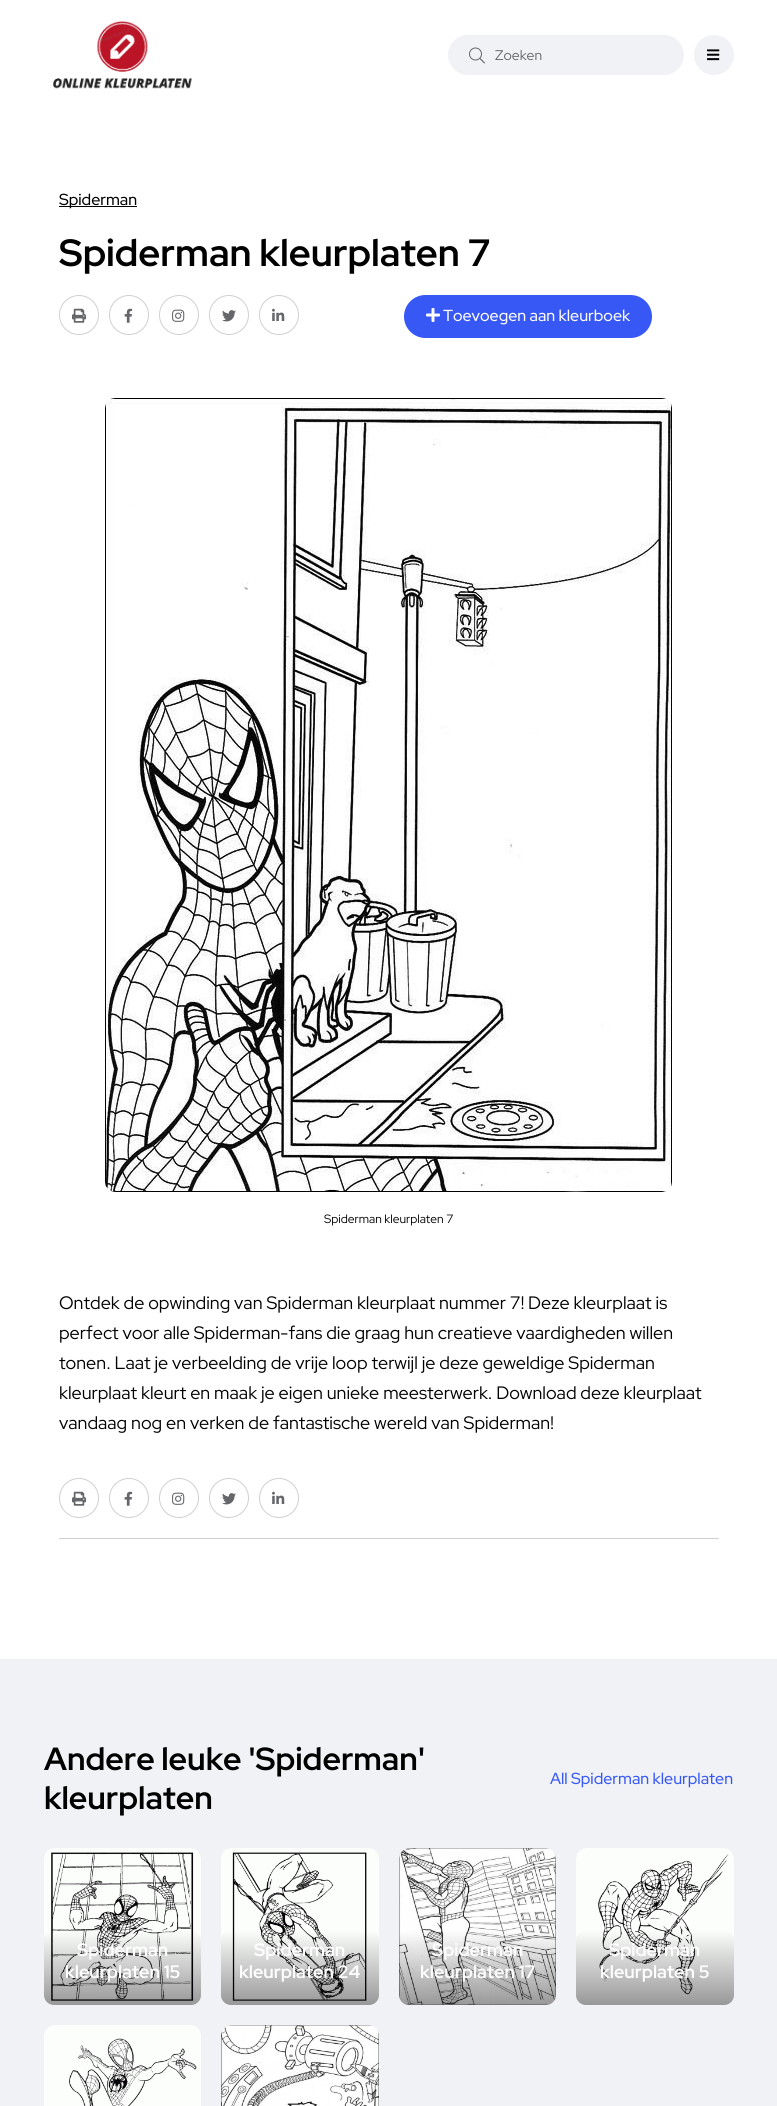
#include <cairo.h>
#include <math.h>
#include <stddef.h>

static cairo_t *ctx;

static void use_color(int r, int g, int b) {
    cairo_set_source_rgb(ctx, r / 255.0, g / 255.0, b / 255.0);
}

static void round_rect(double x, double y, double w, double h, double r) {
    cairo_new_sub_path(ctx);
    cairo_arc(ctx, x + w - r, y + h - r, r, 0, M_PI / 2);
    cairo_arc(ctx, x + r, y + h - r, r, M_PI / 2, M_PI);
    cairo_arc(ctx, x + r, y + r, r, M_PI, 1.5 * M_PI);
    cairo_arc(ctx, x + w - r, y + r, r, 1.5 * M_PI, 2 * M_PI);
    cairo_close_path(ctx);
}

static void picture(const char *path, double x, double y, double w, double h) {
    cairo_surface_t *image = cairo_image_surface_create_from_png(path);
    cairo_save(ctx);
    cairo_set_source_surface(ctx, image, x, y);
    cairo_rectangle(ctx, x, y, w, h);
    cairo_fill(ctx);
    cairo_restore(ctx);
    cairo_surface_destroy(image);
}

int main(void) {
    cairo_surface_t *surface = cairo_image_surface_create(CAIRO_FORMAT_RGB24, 777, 2106);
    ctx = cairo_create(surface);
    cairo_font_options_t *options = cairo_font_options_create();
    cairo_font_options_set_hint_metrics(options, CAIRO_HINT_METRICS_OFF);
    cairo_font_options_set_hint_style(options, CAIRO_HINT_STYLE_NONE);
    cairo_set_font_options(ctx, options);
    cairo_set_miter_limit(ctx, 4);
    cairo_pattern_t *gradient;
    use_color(255, 255, 255);
    cairo_paint(ctx);
    picture("img1.png", 53, 21, 139, 68);
    use_color(240, 242, 245);
    round_rect(448, 35, 236, 40, 20);
    cairo_fill(ctx);
    picture("img2.png", 469, 47, 16, 17);
    cairo_select_font_face(ctx, "Red Hat Display", CAIRO_FONT_SLANT_NORMAL, CAIRO_FONT_WEIGHT_NORMAL);
    cairo_set_font_size(ctx, 14);
    use_color(101, 103, 107);
    cairo_move_to(ctx, 495, 60);
    cairo_show_text(ctx, "Zoeken");
    use_color(240, 242, 245);
    cairo_new_path(ctx);
    cairo_arc(ctx, 714, 55, 20, 0, 2 * M_PI);
    cairo_fill(ctx);
    picture("img3.png", 707, 49, 13, 12);
    use_color(0, 0, 0);
    cairo_rectangle(ctx, 59, 206, 78, 1);
    cairo_fill(ctx);
    cairo_select_font_face(ctx, "Red Hat Display Medium", CAIRO_FONT_SLANT_NORMAL, CAIRO_FONT_WEIGHT_NORMAL);
    cairo_set_font_size(ctx, 16);
    cairo_move_to(ctx, 59, 205);
    cairo_show_text(ctx, "Spiderman");
    cairo_select_font_face(ctx, "Red Hat Display", CAIRO_FONT_SLANT_NORMAL, CAIRO_FONT_WEIGHT_BOLD);
    cairo_set_font_size(ctx, 38);
    cairo_move_to(ctx, 59, 266);
    cairo_show_text(ctx, "Spiderman kleurplaten 7");
    cairo_new_path(ctx);
    cairo_arc(ctx, 79, 315, 19.5, 0, 2 * M_PI);
    use_color(206, 208, 212);
    cairo_set_line_width(ctx, 1);
    cairo_stroke(ctx);
    picture("img4.png", 72, 308, 14, 15);
    cairo_arc(ctx, 129, 315, 19.5, 0, 2 * M_PI);
    cairo_stroke(ctx);
    picture("img5.png", 124, 308, 9, 15);
    cairo_arc(ctx, 179, 315, 19.5, 0, 2 * M_PI);
    cairo_stroke(ctx);
    picture("img6.png", 172, 309, 13, 13);
    cairo_arc(ctx, 229, 315, 19.5, 0, 2 * M_PI);
    cairo_stroke(ctx);
    picture("img7.png", 222, 310, 14, 12);
    cairo_arc(ctx, 279, 315, 19.5, 0, 2 * M_PI);
    cairo_stroke(ctx);
    picture("img8.png", 272, 308, 13, 13);
    use_color(56, 88, 246);
    round_rect(405, 296, 246, 41, 20.5);
    cairo_fill_preserve(ctx);
    cairo_set_line_width(ctx, 2);
    cairo_stroke(ctx);
    picture("img9.png", 426, 308, 14, 14);
    cairo_select_font_face(ctx, "Red Hat Display Medium", CAIRO_FONT_SLANT_NORMAL, CAIRO_FONT_WEIGHT_NORMAL);
    cairo_set_font_size(ctx, 16);
    use_color(255, 255, 255);
    cairo_move_to(ctx, 443, 321);
    cairo_show_text(ctx, "Toevoegen aan kleurboek");
    picture("img10.png", 105, 398, 567, 794);
    cairo_select_font_face(ctx, "Red Hat Display", CAIRO_FONT_SLANT_NORMAL, CAIRO_FONT_WEIGHT_NORMAL);
    cairo_set_font_size(ctx, 12);
    use_color(0, 0, 0);
    cairo_move_to(ctx, 324, 1223);
    cairo_show_text(ctx, "Spiderman kleurplaten 7");
    cairo_set_font_size(ctx, 18);
    cairo_move_to(ctx, 59, 1309);
    cairo_show_text(ctx, "Ontdek de opwinding van Spiderman kleurplaat nummer 7! Deze kleurplaat is");
    cairo_move_to(ctx, 59, 1339);
    cairo_show_text(ctx, "perfect voor alle Spiderman-fans die graag hun creatieve vaardigheden willen");
    cairo_move_to(ctx, 59, 1369);
    cairo_show_text(ctx, "tonen. Laat je verbeelding de vrije loop terwijl je deze geweldige Spiderman");
    cairo_move_to(ctx, 59, 1399);
    cairo_show_text(ctx, "kleurplaat kleurt en maak je eigen unieke meesterwerk. Download deze kleurplaat");
    cairo_move_to(ctx, 59, 1429);
    cairo_show_text(ctx, "vandaag nog en verken de fantastische wereld van Spiderman!");
    use_color(206, 208, 212);
    cairo_rectangle(ctx, 59, 1538, 660, 1);
    cairo_fill(ctx);
    cairo_arc(ctx, 79, 1498, 19.5, 0, 2 * M_PI);
    cairo_set_line_width(ctx, 1);
    cairo_stroke(ctx);
    picture("img4.png", 72, 1491, 14, 15);
    cairo_arc(ctx, 129, 1498, 19.5, 0, 2 * M_PI);
    cairo_stroke(ctx);
    picture("img5.png", 124, 1491, 9, 15);
    cairo_arc(ctx, 179, 1498, 19.5, 0, 2 * M_PI);
    cairo_stroke(ctx);
    picture("img6.png", 172, 1492, 13, 13);
    cairo_arc(ctx, 229, 1498, 19.5, 0, 2 * M_PI);
    cairo_stroke(ctx);
    picture("img7.png", 222, 1493, 14, 12);
    cairo_arc(ctx, 279, 1498, 19.5, 0, 2 * M_PI);
    cairo_stroke(ctx);
    picture("img8.png", 272, 1491, 13, 13);
    use_color(240, 242, 245);
    cairo_rectangle(ctx, 0, 1659, 777, 447);
    cairo_fill(ctx);
    cairo_select_font_face(ctx, "Red Hat Display", CAIRO_FONT_SLANT_NORMAL, CAIRO_FONT_WEIGHT_BOLD);
    cairo_set_font_size(ctx, 32);
    use_color(0, 0, 0);
    cairo_move_to(ctx, 44, 1770);
    cairo_show_text(ctx, "Andere leuke 'Spiderman'");
    cairo_move_to(ctx, 44, 1809);
    cairo_show_text(ctx, "kleurplaten");
    cairo_select_font_face(ctx, "Red Hat Display Medium", CAIRO_FONT_SLANT_NORMAL, CAIRO_FONT_WEIGHT_NORMAL);
    cairo_set_font_size(ctx, 16);
    use_color(56, 88, 246);
    cairo_move_to(ctx, 550, 1784);
    cairo_show_text(ctx, "All Spiderman kleurplaten");
    picture("img11.png", 44, 1848, 157, 157);
    gradient = cairo_pattern_create_linear(123, 1930, 123, 2005);
    cairo_pattern_add_color_stop_rgba(gradient, 0, 0, 0, 0, 0);
    cairo_pattern_add_color_stop_rgba(gradient, 1, 0, 0, 0, 0.4);
    cairo_set_source(ctx, gradient);
    cairo_pattern_destroy(gradient);
    round_rect(44, 1930, 157, 75, 10);
    cairo_fill(ctx);
    cairo_select_font_face(ctx, "Red Hat Display", CAIRO_FONT_SLANT_NORMAL, CAIRO_FONT_WEIGHT_BOLD);
    cairo_set_font_size(ctx, 18);
    use_color(255, 255, 255);
    cairo_move_to(ctx, 77, 1956);
    cairo_show_text(ctx, "Spiderman");
    cairo_move_to(ctx, 65, 1978);
    cairo_show_text(ctx, "kleurplaten 15");
    picture("img12.png", 221, 1848, 158, 157);
    gradient = cairo_pattern_create_linear(300, 1930, 300, 2005);
    cairo_pattern_add_color_stop_rgba(gradient, 0, 0, 0, 0, 0);
    cairo_pattern_add_color_stop_rgba(gradient, 1, 0, 0, 0, 0.4);
    cairo_set_source(ctx, gradient);
    cairo_pattern_destroy(gradient);
    round_rect(221, 1930, 158, 75, 10);
    cairo_fill(ctx);
    use_color(255, 255, 255);
    cairo_move_to(ctx, 254, 1956);
    cairo_show_text(ctx, "Spiderman");
    cairo_move_to(ctx, 239, 1978);
    cairo_show_text(ctx, "kleurplaten 24");
    picture("img13.png", 399, 1848, 157, 157);
    gradient = cairo_pattern_create_linear(478, 1930, 478, 2005);
    cairo_pattern_add_color_stop_rgba(gradient, 0, 0, 0, 0, 0);
    cairo_pattern_add_color_stop_rgba(gradient, 1, 0, 0, 0, 0.4);
    cairo_set_source(ctx, gradient);
    cairo_pattern_destroy(gradient);
    round_rect(399, 1930, 157, 75, 10);
    cairo_fill(ctx);
    use_color(255, 255, 255);
    cairo_move_to(ctx, 432, 1956);
    cairo_show_text(ctx, "Spiderman");
    cairo_move_to(ctx, 420, 1978);
    cairo_show_text(ctx, "kleurplaten 17");
    picture("img14.png", 576, 1848, 158, 157);
    gradient = cairo_pattern_create_linear(655, 1930, 655, 2005);
    cairo_pattern_add_color_stop_rgba(gradient, 0, 0, 0, 0, 0);
    cairo_pattern_add_color_stop_rgba(gradient, 1, 0, 0, 0, 0.4);
    cairo_set_source(ctx, gradient);
    cairo_pattern_destroy(gradient);
    round_rect(576, 1930, 158, 75, 10);
    cairo_fill(ctx);
    use_color(255, 255, 255);
    cairo_move_to(ctx, 609, 1956);
    cairo_show_text(ctx, "Spiderman");
    cairo_move_to(ctx, 600, 1978);
    cairo_show_text(ctx, "kleurplaten 5");
    picture("img15.png", 44, 2025, 157, 81);
    picture("img16.png", 221, 2025, 158, 81);
    cairo_surface_write_to_png(surface, "result.png");
    cairo_font_options_destroy(options);
    cairo_destroy(ctx);
    cairo_surface_destroy(surface);
    return 0;
}
